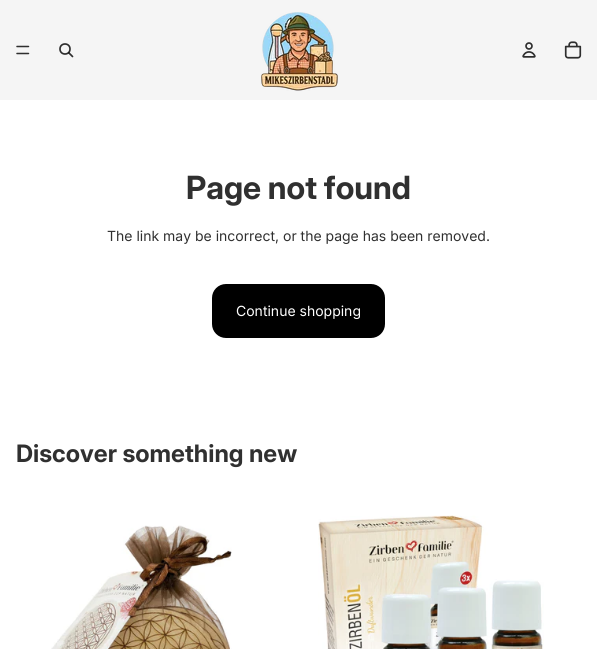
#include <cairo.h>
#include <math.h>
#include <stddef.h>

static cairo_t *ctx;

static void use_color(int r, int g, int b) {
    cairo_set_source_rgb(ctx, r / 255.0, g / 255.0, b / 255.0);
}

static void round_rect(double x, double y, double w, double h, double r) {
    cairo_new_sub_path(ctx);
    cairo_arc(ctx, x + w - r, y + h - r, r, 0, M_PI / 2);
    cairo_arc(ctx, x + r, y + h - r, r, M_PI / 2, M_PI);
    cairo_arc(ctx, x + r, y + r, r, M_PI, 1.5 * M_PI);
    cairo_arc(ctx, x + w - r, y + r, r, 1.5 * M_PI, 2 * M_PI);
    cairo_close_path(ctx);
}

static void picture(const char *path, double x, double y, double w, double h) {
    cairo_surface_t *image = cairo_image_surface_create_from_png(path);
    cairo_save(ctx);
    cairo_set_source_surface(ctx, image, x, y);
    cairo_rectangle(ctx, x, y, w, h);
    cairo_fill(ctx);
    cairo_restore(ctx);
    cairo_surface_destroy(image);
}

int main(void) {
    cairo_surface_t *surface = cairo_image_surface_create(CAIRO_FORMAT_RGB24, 597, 649);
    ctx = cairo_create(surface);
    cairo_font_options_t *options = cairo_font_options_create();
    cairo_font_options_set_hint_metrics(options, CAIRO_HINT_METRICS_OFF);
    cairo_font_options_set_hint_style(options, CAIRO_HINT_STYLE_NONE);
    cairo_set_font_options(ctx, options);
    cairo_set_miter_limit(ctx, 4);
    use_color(255, 255, 255);
    cairo_paint(ctx);
    use_color(245, 245, 245);
    cairo_rectangle(ctx, 0, 0, 597, 100);
    cairo_fill(ctx);
    cairo_new_path(ctx);
    cairo_move_to(ctx, 17, 46.5);
    cairo_line_to(ctx, 28.5, 46.5);
    cairo_move_to(ctx, 17, 53.5);
    cairo_line_to(ctx, 28.5, 53.5);
    use_color(47, 47, 47);
    cairo_set_line_width(ctx, 1.5);
    cairo_set_line_cap(ctx, CAIRO_LINE_CAP_ROUND);
    cairo_stroke(ctx);
    cairo_arc(ctx, 65, 49, 5, 0, 2 * M_PI);
    cairo_set_line_width(ctx, 1.7);
    cairo_set_line_cap(ctx, CAIRO_LINE_CAP_BUTT);
    cairo_stroke(ctx);
    cairo_new_path(ctx);
    cairo_move_to(ctx, 69, 53);
    cairo_line_to(ctx, 72.5, 56.5);
    cairo_set_source_rgba(ctx, 0, 0, 0, 0.81);
    cairo_set_line_cap(ctx, CAIRO_LINE_CAP_ROUND);
    cairo_set_line_join(ctx, CAIRO_LINE_JOIN_ROUND);
    cairo_stroke(ctx);
    picture("img1.png", 261, 12, 77, 79);
    picture("img2.png", 522, 42, 14, 16);
    picture("img3.png", 564, 41, 18, 18);
    cairo_select_font_face(ctx, "Inter", CAIRO_FONT_SLANT_NORMAL, CAIRO_FONT_WEIGHT_BOLD);
    cairo_set_font_size(ctx, 32);
    use_color(48, 48, 48);
    cairo_move_to(ctx, 186, 199);
    cairo_show_text(ctx, "Page not found");
    cairo_select_font_face(ctx, "Inter", CAIRO_FONT_SLANT_NORMAL, CAIRO_FONT_WEIGHT_NORMAL);
    cairo_set_font_size(ctx, 14);
    cairo_move_to(ctx, 107, 241);
    cairo_show_text(ctx, "The link may be incorrect, or the page has been removed.");
    use_color(0, 0, 0);
    round_rect(212, 284, 173, 54, 14);
    cairo_fill(ctx);
    use_color(255, 255, 255);
    cairo_move_to(ctx, 236, 316);
    cairo_show_text(ctx, "Continue shopping");
    cairo_select_font_face(ctx, "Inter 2", CAIRO_FONT_SLANT_NORMAL, CAIRO_FONT_WEIGHT_BOLD);
    cairo_set_font_size(ctx, 24);
    use_color(48, 48, 48);
    cairo_move_to(ctx, 16, 462);
    cairo_show_text(ctx, "Discover something new");
    picture("img4.png", 51, 525, 181, 124);
    picture("img5.png", 318, 515, 226, 134);
    cairo_surface_write_to_png(surface, "result.png");
    cairo_font_options_destroy(options);
    cairo_destroy(ctx);
    cairo_surface_destroy(surface);
    return 0;
}
